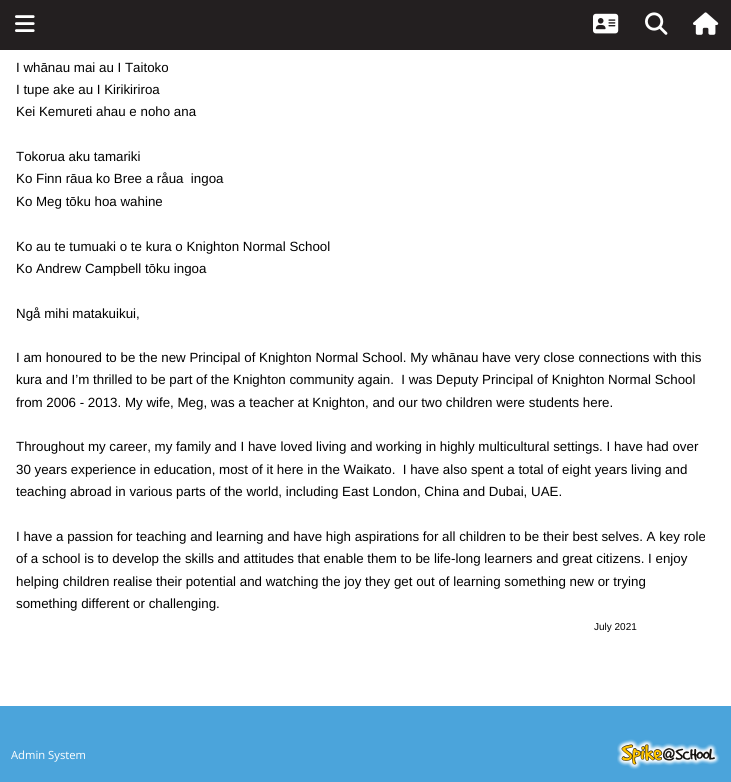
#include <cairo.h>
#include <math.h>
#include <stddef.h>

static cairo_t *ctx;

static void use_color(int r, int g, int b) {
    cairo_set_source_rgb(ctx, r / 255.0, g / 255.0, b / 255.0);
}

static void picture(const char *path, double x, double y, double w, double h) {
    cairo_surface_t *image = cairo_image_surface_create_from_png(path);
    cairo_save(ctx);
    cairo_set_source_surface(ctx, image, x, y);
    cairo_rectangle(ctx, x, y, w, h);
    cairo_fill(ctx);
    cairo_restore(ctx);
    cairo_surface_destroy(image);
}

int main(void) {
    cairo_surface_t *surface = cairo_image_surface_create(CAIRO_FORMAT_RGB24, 731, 782);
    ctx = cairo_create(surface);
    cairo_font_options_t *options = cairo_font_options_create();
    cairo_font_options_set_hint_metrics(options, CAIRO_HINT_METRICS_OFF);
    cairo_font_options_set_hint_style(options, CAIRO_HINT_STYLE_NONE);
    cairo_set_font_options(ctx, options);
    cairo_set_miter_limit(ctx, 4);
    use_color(255, 255, 255);
    cairo_paint(ctx);
    use_color(35, 31, 32);
    cairo_rectangle(ctx, 0, 0, 731, 50);
    cairo_fill(ctx);
    picture("img1.png", 15, 15, 20, 17);
    picture("img2.png", 593, 13, 26, 21);
    picture("img3.png", 645, 12, 23, 23);
    picture("img4.png", 693, 12, 26, 23);
    cairo_select_font_face(ctx, "Liberation Sans", CAIRO_FONT_SLANT_NORMAL, CAIRO_FONT_WEIGHT_NORMAL);
    cairo_set_font_size(ctx, 13.33);
    use_color(0, 0, 0);
    cairo_move_to(ctx, 16, 72);
    cairo_show_text(ctx, "I whānau mai au I Taitoko");
    cairo_move_to(ctx, 16, 94);
    cairo_show_text(ctx, "I tupe ake au I Kirikiriroa");
    cairo_move_to(ctx, 16, 116);
    cairo_show_text(ctx, "Kei Kemureti ahau e noho ana");
    cairo_move_to(ctx, 16, 161);
    cairo_show_text(ctx, "Tokorua aku tamariki");
    cairo_move_to(ctx, 16, 183);
    cairo_show_text(ctx, "Ko Finn rāua ko Bree a råua  ingoa");
    cairo_move_to(ctx, 16, 206);
    cairo_show_text(ctx, "Ko Meg tōku hoa wahine");
    cairo_move_to(ctx, 16, 251);
    cairo_show_text(ctx, "Ko au te tumuaki o te kura o Knighton Normal School");
    cairo_move_to(ctx, 16, 273);
    cairo_show_text(ctx, "Ko Andrew Campbell tōku ingoa");
    cairo_move_to(ctx, 16, 318);
    cairo_show_text(ctx, "Ngå mihi matakuikui,");
    cairo_move_to(ctx, 16, 362);
    cairo_show_text(ctx, "I am honoured to be the new Principal of Knighton Normal School. My whānau have very close connections with this");
    cairo_move_to(ctx, 16, 384);
    cairo_show_text(ctx, "kura and I’m thrilled to be part of the Knighton community again.  I was Deputy Principal of Knighton Normal School");
    cairo_move_to(ctx, 16, 407);
    cairo_show_text(ctx, "from 2006 - 2013. My wife, Meg, was a teacher at Knighton, and our two children were students here.");
    cairo_move_to(ctx, 16, 451);
    cairo_show_text(ctx, "Throughout my career, my family and I have loved living and working in highly multicultural settings. I have had over");
    cairo_move_to(ctx, 16, 474);
    cairo_show_text(ctx, "30 years experience in education, most of it here in the Waikato.  I have also spent a total of eight years living and");
    cairo_move_to(ctx, 16, 496);
    cairo_show_text(ctx, "teaching abroad in various parts of the world, including East London, China and Dubai, UAE.");
    cairo_move_to(ctx, 16, 541);
    cairo_show_text(ctx, "I have a passion for teaching and learning and have high aspirations for all children to be their best selves. A key role");
    cairo_move_to(ctx, 16, 563);
    cairo_show_text(ctx, "of a school is to develop the skills and attitudes that enable them to be life-long learners and great citizens. I enjoy");
    cairo_move_to(ctx, 16, 586);
    cairo_show_text(ctx, "helping children realise their potential and watching the joy they get out of learning something new or trying");
    cairo_move_to(ctx, 16, 608);
    cairo_show_text(ctx, "something different or challenging.");
    cairo_set_font_size(ctx, 10);
    cairo_move_to(ctx, 594, 630);
    cairo_show_text(ctx, "July 2021");
    use_color(75, 164, 219);
    cairo_rectangle(ctx, 0, 706, 731, 76);
    cairo_fill(ctx);
    cairo_select_font_face(ctx, "Open Sans", CAIRO_FONT_SLANT_NORMAL, CAIRO_FONT_WEIGHT_NORMAL);
    cairo_set_font_size(ctx, 11.25);
    use_color(255, 255, 255);
    cairo_move_to(ctx, 11, 759);
    cairo_show_text(ctx, "Admin System");
    picture("img5.png", 617, 739, 103, 31);
    cairo_surface_write_to_png(surface, "result.png");
    cairo_font_options_destroy(options);
    cairo_destroy(ctx);
    cairo_surface_destroy(surface);
    return 0;
}
